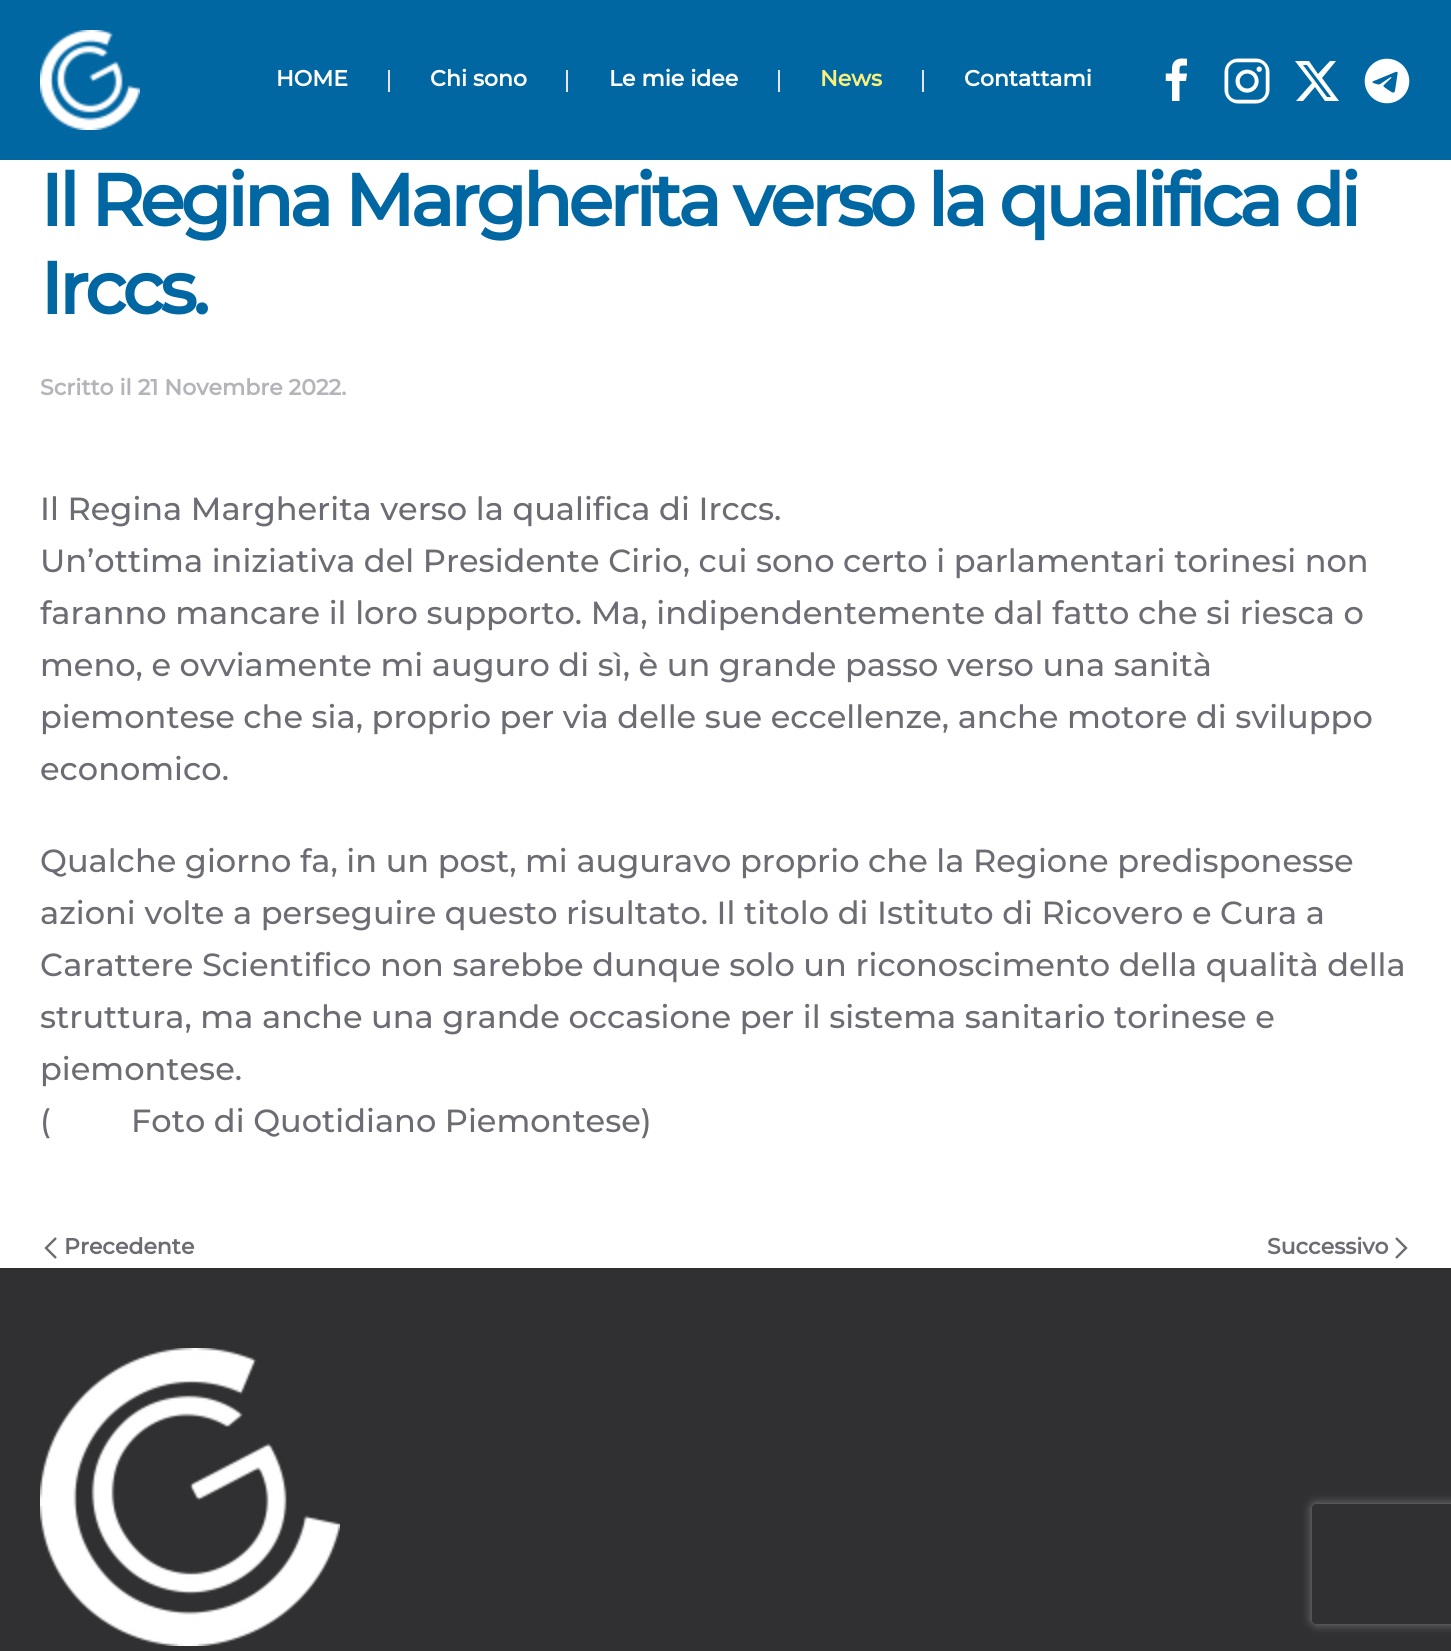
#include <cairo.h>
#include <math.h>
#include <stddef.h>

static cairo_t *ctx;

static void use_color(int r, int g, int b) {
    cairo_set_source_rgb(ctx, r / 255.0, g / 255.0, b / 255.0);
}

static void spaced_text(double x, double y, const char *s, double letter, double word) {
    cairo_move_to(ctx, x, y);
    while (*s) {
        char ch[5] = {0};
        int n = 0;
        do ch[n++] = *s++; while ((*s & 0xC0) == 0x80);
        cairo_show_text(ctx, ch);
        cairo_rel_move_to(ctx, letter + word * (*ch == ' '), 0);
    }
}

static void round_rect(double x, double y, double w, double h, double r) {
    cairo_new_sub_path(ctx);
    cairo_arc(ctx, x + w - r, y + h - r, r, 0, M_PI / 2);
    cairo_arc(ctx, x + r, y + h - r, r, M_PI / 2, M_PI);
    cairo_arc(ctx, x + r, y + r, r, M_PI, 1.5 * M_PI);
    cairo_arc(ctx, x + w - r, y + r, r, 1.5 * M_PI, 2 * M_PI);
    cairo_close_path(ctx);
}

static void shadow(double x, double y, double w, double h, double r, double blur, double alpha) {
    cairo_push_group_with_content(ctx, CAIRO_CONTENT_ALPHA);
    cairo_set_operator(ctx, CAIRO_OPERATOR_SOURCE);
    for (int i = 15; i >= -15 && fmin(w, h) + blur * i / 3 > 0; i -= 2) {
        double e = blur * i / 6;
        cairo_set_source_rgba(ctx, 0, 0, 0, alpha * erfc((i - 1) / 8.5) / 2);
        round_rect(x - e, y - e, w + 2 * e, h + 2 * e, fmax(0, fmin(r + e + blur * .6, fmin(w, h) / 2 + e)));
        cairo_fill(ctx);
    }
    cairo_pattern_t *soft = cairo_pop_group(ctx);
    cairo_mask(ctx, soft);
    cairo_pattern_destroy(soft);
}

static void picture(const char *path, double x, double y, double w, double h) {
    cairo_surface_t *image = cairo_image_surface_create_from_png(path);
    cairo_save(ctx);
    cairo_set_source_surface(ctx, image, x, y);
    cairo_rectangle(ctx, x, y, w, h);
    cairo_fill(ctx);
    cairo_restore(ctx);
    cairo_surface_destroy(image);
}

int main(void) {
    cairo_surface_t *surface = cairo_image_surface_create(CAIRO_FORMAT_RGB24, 1451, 1651);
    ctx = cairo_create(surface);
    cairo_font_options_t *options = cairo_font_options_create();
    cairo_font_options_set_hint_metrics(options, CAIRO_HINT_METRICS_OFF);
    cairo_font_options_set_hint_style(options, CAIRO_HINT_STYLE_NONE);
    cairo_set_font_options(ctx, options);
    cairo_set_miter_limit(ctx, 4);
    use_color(255, 255, 255);
    cairo_paint(ctx);
    use_color(0, 103, 163);
    cairo_rectangle(ctx, 0, 0, 1451, 160);
    cairo_fill(ctx);
    picture("img1.png", 40, 30, 100, 100);
    cairo_select_font_face(ctx, "Montserrat", CAIRO_FONT_SLANT_NORMAL, CAIRO_FONT_WEIGHT_BOLD);
    cairo_set_font_size(ctx, 22);
    use_color(255, 255, 255);
    cairo_move_to(ctx, 276, 86);
    cairo_show_text(ctx, "HOME");
    use_color(229, 229, 231);
    cairo_rectangle(ctx, 388, 70, 2, 22);
    cairo_fill(ctx);
    use_color(255, 255, 255);
    cairo_move_to(ctx, 430, 86);
    cairo_show_text(ctx, "Chi sono");
    use_color(229, 229, 231);
    cairo_rectangle(ctx, 566, 70, 2, 22);
    cairo_fill(ctx);
    use_color(255, 255, 255);
    cairo_move_to(ctx, 609, 86);
    cairo_show_text(ctx, "Le mie idee");
    use_color(229, 229, 231);
    cairo_rectangle(ctx, 778, 70, 2, 22);
    cairo_fill(ctx);
    use_color(249, 240, 124);
    cairo_move_to(ctx, 820, 86);
    cairo_show_text(ctx, "News");
    use_color(229, 229, 231);
    cairo_rectangle(ctx, 922, 70, 2, 22);
    cairo_fill(ctx);
    use_color(255, 255, 255);
    cairo_move_to(ctx, 964, 86);
    cairo_show_text(ctx, "Contattami");
    picture("img2.png", 1165, 58, 22, 43);
    picture("img3.png", 1224, 58, 46, 46);
    cairo_new_path(ctx);
    cairo_move_to(ctx, 1330, 61);
    cairo_line_to(ctx, 1336, 61);
    cairo_line_to(ctx, 1322, 78);
    cairo_line_to(ctx, 1339, 101);
    cairo_line_to(ctx, 1325, 101);
    cairo_line_to(ctx, 1315, 87);
    cairo_line_to(ctx, 1303, 101);
    cairo_line_to(ctx, 1296, 101);
    cairo_line_to(ctx, 1312, 83);
    cairo_line_to(ctx, 1295, 61);
    cairo_line_to(ctx, 1309, 61);
    cairo_line_to(ctx, 1318, 74);
    cairo_close_path(ctx);
    cairo_move_to(ctx, 1327, 97);
    cairo_line_to(ctx, 1331, 97);
    cairo_line_to(ctx, 1307, 65);
    cairo_line_to(ctx, 1303, 65);
    cairo_close_path(ctx);
    cairo_fill(ctx);
    picture("img4.png", 1364, 58, 46, 46);
    cairo_set_font_size(ctx, 73.1);
    use_color(0, 103, 163);
    spaced_text(40, 226, "Il Regina Margherita verso la qualifica di", -4, 0);
    spaced_text(40, 314, "Irccs.", -4, 0);
    cairo_set_font_size(ctx, 22);
    use_color(180, 181, 186);
    cairo_move_to(ctx, 40, 395);
    cairo_show_text(ctx, "Scritto il 21 Novembre 2022.");
    cairo_select_font_face(ctx, "Montserrat Thin", CAIRO_FONT_SLANT_NORMAL, CAIRO_FONT_WEIGHT_NORMAL);
    cairo_set_font_size(ctx, 32);
    use_color(108, 109, 116);
    cairo_move_to(ctx, 40, 520);
    cairo_show_text(ctx, "Il Regina Margherita verso la qualifica di Irccs.");
    cairo_move_to(ctx, 40, 572);
    cairo_show_text(ctx, "Un’ottima iniziativa del Presidente Cirio, cui sono certo i parlamentari torinesi non");
    cairo_move_to(ctx, 40, 624);
    cairo_show_text(ctx, "faranno mancare il loro supporto. Ma, indipendentemente dal fatto che si riesca o");
    cairo_move_to(ctx, 40, 676);
    cairo_show_text(ctx, "meno, e ovviamente mi auguro di sì, è un grande passo verso una sanità");
    cairo_move_to(ctx, 40, 728);
    cairo_show_text(ctx, "piemontese che sia, proprio per via delle sue eccellenze, anche motore di sviluppo");
    cairo_move_to(ctx, 40, 780);
    cairo_show_text(ctx, "economico.");
    cairo_move_to(ctx, 40, 872);
    cairo_show_text(ctx, "Qualche giorno fa, in un post, mi auguravo proprio che la Regione predisponesse");
    cairo_move_to(ctx, 40, 924);
    cairo_show_text(ctx, "azioni volte a perseguire questo risultato. Il titolo di Istituto di Ricovero e Cura a");
    cairo_move_to(ctx, 40, 976);
    cairo_show_text(ctx, "Carattere Scientifico non sarebbe dunque solo un riconoscimento della qualità della");
    cairo_move_to(ctx, 40, 1028);
    cairo_show_text(ctx, "struttura, ma anche una grande occasione per il sistema sanitario torinese e");
    cairo_move_to(ctx, 40, 1080);
    cairo_show_text(ctx, "piemontese.");
    cairo_move_to(ctx, 40, 1132);
    cairo_show_text(ctx, "(");
    cairo_move_to(ctx, 131, 1132);
    cairo_show_text(ctx, "Foto di Quotidiano Piemontese)");
    cairo_new_path(ctx);
    cairo_move_to(ctx, 56, 1238);
    cairo_line_to(ctx, 46, 1248);
    cairo_line_to(ctx, 56, 1258);
    cairo_set_line_width(ctx, 2.4);
    cairo_stroke(ctx);
    cairo_select_font_face(ctx, "Montserrat", CAIRO_FONT_SLANT_NORMAL, CAIRO_FONT_WEIGHT_BOLD);
    cairo_set_font_size(ctx, 22);
    cairo_move_to(ctx, 64, 1254);
    cairo_show_text(ctx, "Precedente");
    cairo_move_to(ctx, 1267, 1254);
    cairo_show_text(ctx, "Successivo");
    cairo_new_path(ctx);
    cairo_move_to(ctx, 1396, 1238);
    cairo_line_to(ctx, 1406, 1248);
    cairo_line_to(ctx, 1396, 1258);
    cairo_stroke(ctx);
    use_color(48, 48, 51);
    cairo_rectangle(ctx, 0, 1268, 1451, 383);
    cairo_fill(ctx);
    picture("img5.png", 40, 1348, 300, 298);
    cairo_save(ctx);
    cairo_set_fill_rule(ctx, CAIRO_FILL_RULE_EVEN_ODD);
    cairo_new_path(ctx);
    cairo_move_to(ctx, 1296, 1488);
    cairo_line_to(ctx, 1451, 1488);
    cairo_line_to(ctx, 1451, 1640);
    cairo_line_to(ctx, 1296, 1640);
    cairo_close_path(ctx);
    cairo_move_to(ctx, 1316, 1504);
    cairo_line_to(ctx, 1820, 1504);
    cairo_curve_to(ctx, 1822, 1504, 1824, 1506, 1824, 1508);
    cairo_line_to(ctx, 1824, 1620);
    cairo_curve_to(ctx, 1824, 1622, 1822, 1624, 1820, 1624);
    cairo_line_to(ctx, 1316, 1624);
    cairo_curve_to(ctx, 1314, 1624, 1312, 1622, 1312, 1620);
    cairo_line_to(ctx, 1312, 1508);
    cairo_curve_to(ctx, 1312, 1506, 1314, 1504, 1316, 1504);
    cairo_close_path(ctx);
    cairo_clip(ctx);
    use_color(128, 128, 128);
    shadow(1312, 1504, 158, 120, 4, 5, 1);
    cairo_restore(ctx);
    cairo_surface_write_to_png(surface, "result.png");
    cairo_font_options_destroy(options);
    cairo_destroy(ctx);
    cairo_surface_destroy(surface);
    return 0;
}
